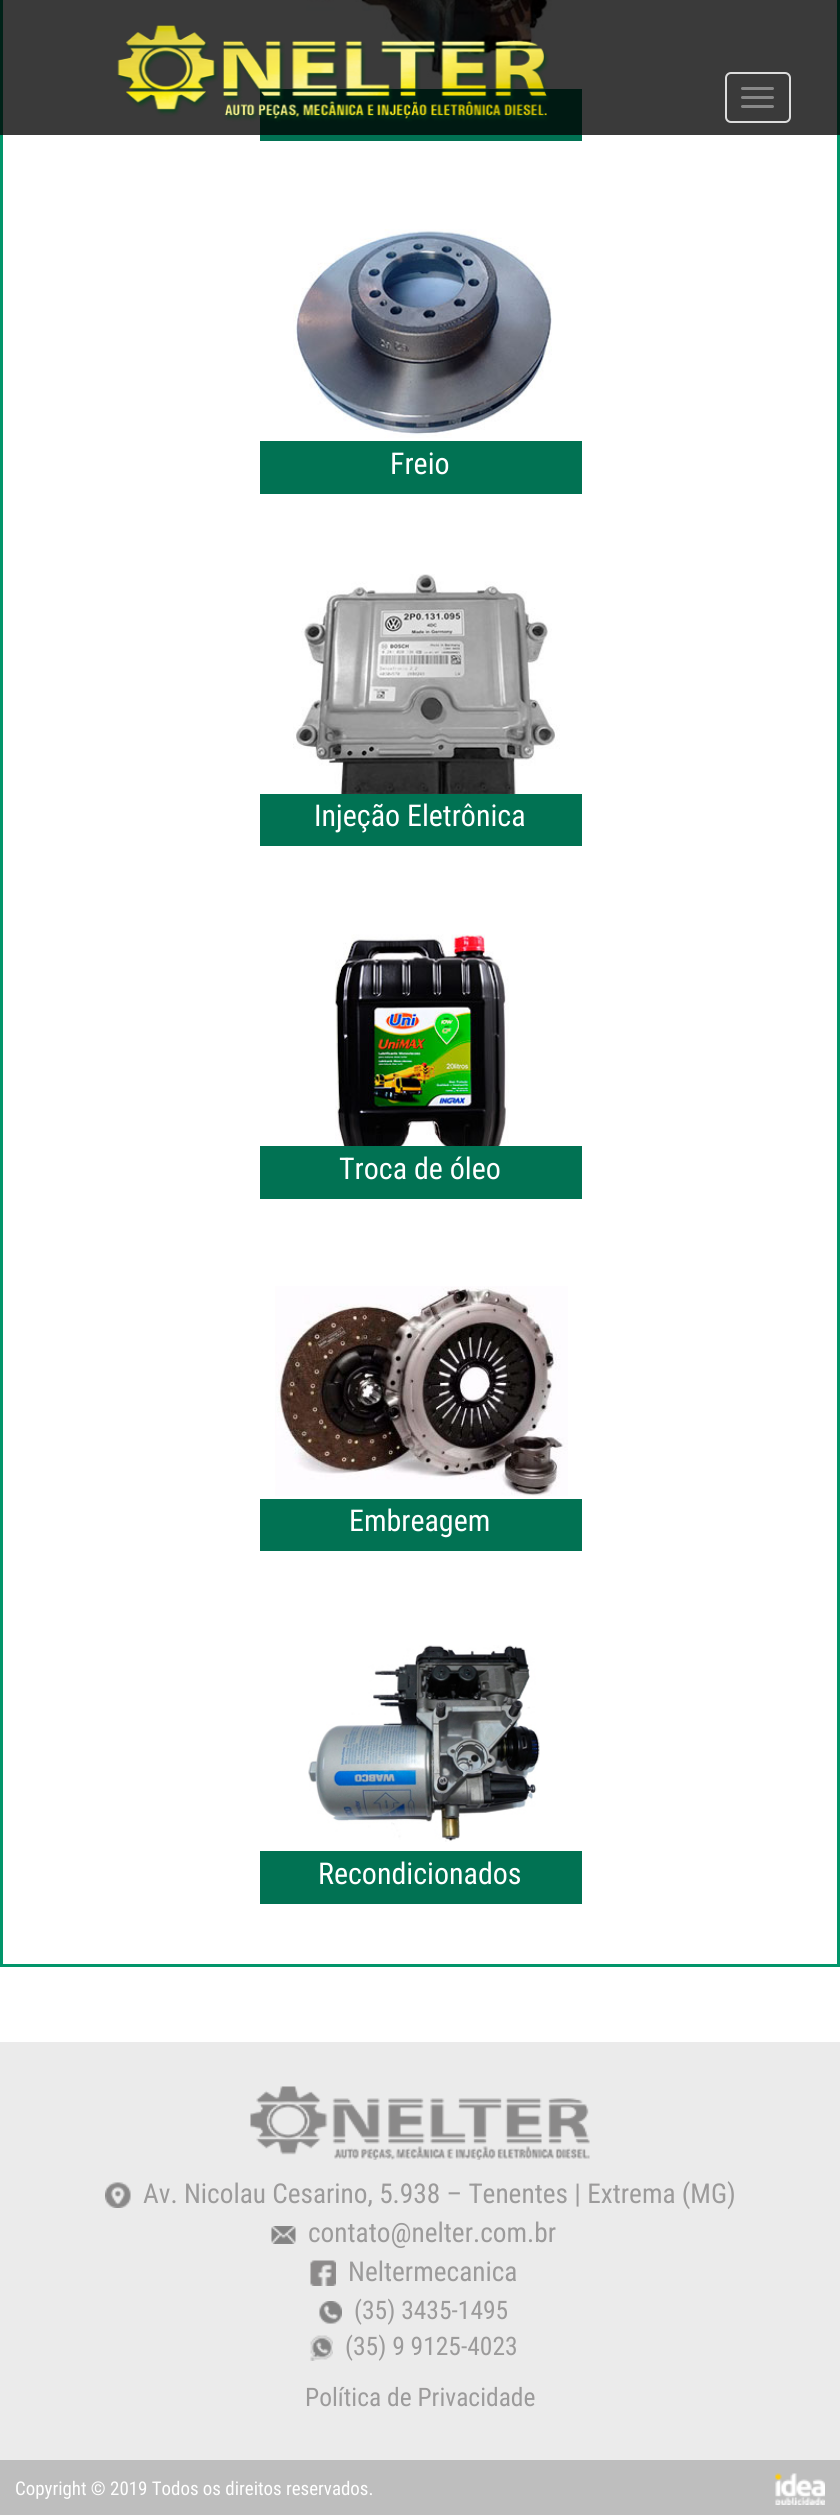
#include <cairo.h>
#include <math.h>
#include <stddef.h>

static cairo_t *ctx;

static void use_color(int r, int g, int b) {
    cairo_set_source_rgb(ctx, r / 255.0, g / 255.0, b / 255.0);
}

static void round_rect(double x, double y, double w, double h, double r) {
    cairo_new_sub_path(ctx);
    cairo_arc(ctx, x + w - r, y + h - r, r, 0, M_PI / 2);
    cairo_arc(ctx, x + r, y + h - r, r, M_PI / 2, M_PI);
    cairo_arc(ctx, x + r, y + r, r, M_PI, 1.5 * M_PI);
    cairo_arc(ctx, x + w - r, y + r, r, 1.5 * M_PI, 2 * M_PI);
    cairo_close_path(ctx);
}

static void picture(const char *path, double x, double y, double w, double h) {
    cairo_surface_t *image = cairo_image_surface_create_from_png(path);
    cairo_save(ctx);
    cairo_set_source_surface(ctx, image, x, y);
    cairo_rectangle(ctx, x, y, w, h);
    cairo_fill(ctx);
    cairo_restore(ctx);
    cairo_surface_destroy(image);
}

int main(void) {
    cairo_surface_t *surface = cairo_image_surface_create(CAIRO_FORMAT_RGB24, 840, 2515);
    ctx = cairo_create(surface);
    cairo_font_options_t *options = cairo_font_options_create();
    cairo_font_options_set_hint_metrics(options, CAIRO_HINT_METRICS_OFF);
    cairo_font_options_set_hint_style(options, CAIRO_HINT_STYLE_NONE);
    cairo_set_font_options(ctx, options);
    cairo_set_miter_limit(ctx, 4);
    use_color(255, 255, 255);
    cairo_paint(ctx);
    cairo_rectangle(ctx, 1.5, -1.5, 837, 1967);
    use_color(1, 149, 106);
    cairo_set_line_width(ctx, 3);
    cairo_stroke(ctx);
    picture("img2.png", 306, 0, 246, 78);
    use_color(1, 114, 83);
    cairo_rectangle(ctx, 260, 89, 322, 52);
    cairo_fill(ctx);
    cairo_set_source_rgba(ctx, 0, 0, 0, 0.77);
    cairo_rectangle(ctx, 0, 0, 840, 135);
    cairo_fill(ctx);
    picture("img1.png", 117, 25, 432, 97);
    round_rect(726, 73, 64, 49, 5);
    use_color(221, 221, 221);
    cairo_set_line_width(ctx, 2);
    cairo_stroke(ctx);
    use_color(136, 136, 136);
    round_rect(741, 87, 33, 3, 1.5);
    cairo_fill(ctx);
    round_rect(741, 96, 33, 3, 1.5);
    cairo_fill(ctx);
    round_rect(741, 105, 33, 3, 1.5);
    cairo_fill(ctx);
    picture("img3.png", 293, 229, 259, 209);
    use_color(1, 114, 83);
    cairo_rectangle(ctx, 260, 441, 322, 53);
    cairo_fill(ctx);
    cairo_select_font_face(ctx, "Roboto Condensed", CAIRO_FONT_SLANT_NORMAL, CAIRO_FONT_WEIGHT_NORMAL);
    cairo_set_font_size(ctx, 30);
    use_color(255, 255, 255);
    cairo_move_to(ctx, 390, 474);
    cairo_show_text(ctx, "Freio");
    picture("img4.png", 293, 574, 267, 220);
    use_color(1, 114, 83);
    cairo_rectangle(ctx, 260, 794, 322, 52);
    cairo_fill(ctx);
    use_color(255, 255, 255);
    cairo_move_to(ctx, 314, 826);
    cairo_show_text(ctx, "Injeção Eletrônica");
    picture("img5.png", 335, 934, 174, 212);
    use_color(1, 114, 83);
    cairo_rectangle(ctx, 260, 1146, 322, 53);
    cairo_fill(ctx);
    use_color(255, 255, 255);
    cairo_move_to(ctx, 339, 1179);
    cairo_show_text(ctx, "Troca de óleo");
    picture("img6.png", 275, 1286, 293, 210);
    use_color(1, 114, 83);
    cairo_rectangle(ctx, 260, 1499, 322, 52);
    cairo_fill(ctx);
    use_color(255, 255, 255);
    cairo_move_to(ctx, 349, 1531);
    cairo_show_text(ctx, "Embreagem");
    picture("img7.png", 308, 1645, 232, 197);
    use_color(1, 114, 83);
    cairo_rectangle(ctx, 260, 1851, 322, 53);
    cairo_fill(ctx);
    use_color(255, 255, 255);
    cairo_move_to(ctx, 318, 1884);
    cairo_show_text(ctx, "Recondicionados");
    use_color(235, 235, 235);
    cairo_rectangle(ctx, 0, 2042, 840, 418);
    cairo_fill(ctx);
    picture("img8.png", 250, 2086, 340, 74);
    picture("img9.png", 105, 2182, 26, 26);
    cairo_set_font_size(ctx, 27.3);
    use_color(156, 155, 155);
    cairo_move_to(ctx, 143, 2203);
    cairo_show_text(ctx, "Av. Nicolau Cesarino, 5.938 – Tenentes | Extrema (MG)");
    picture("img10.png", 271, 2226, 25, 18);
    cairo_move_to(ctx, 308, 2242);
    cairo_show_text(ctx, "contato@nelter.com.br");
    picture("img11.png", 310, 2260, 26, 26);
    cairo_move_to(ctx, 348, 2281);
    cairo_show_text(ctx, "Neltermecanica");
    picture("img12.png", 319, 2301, 23, 23);
    cairo_set_font_size(ctx, 25.5);
    cairo_move_to(ctx, 354, 2319);
    cairo_show_text(ctx, "(35) 3435-1495");
    picture("img13.png", 310, 2335, 23, 26);
    cairo_move_to(ctx, 345, 2355);
    cairo_show_text(ctx, "(35) 9 9125-4023");
    cairo_move_to(ctx, 305, 2406);
    cairo_show_text(ctx, "Política de Privacidade");
    use_color(190, 190, 190);
    cairo_rectangle(ctx, 0, 2460, 840, 55);
    cairo_fill(ctx);
    cairo_set_font_size(ctx, 18.9);
    use_color(255, 255, 255);
    cairo_move_to(ctx, 15, 2495);
    cairo_show_text(ctx, "Copyright © 2019 Todos os direitos reservados.");
    picture("img14.png", 775, 2473, 50, 32);
    cairo_surface_write_to_png(surface, "result.png");
    cairo_font_options_destroy(options);
    cairo_destroy(ctx);
    cairo_surface_destroy(surface);
    return 0;
}
